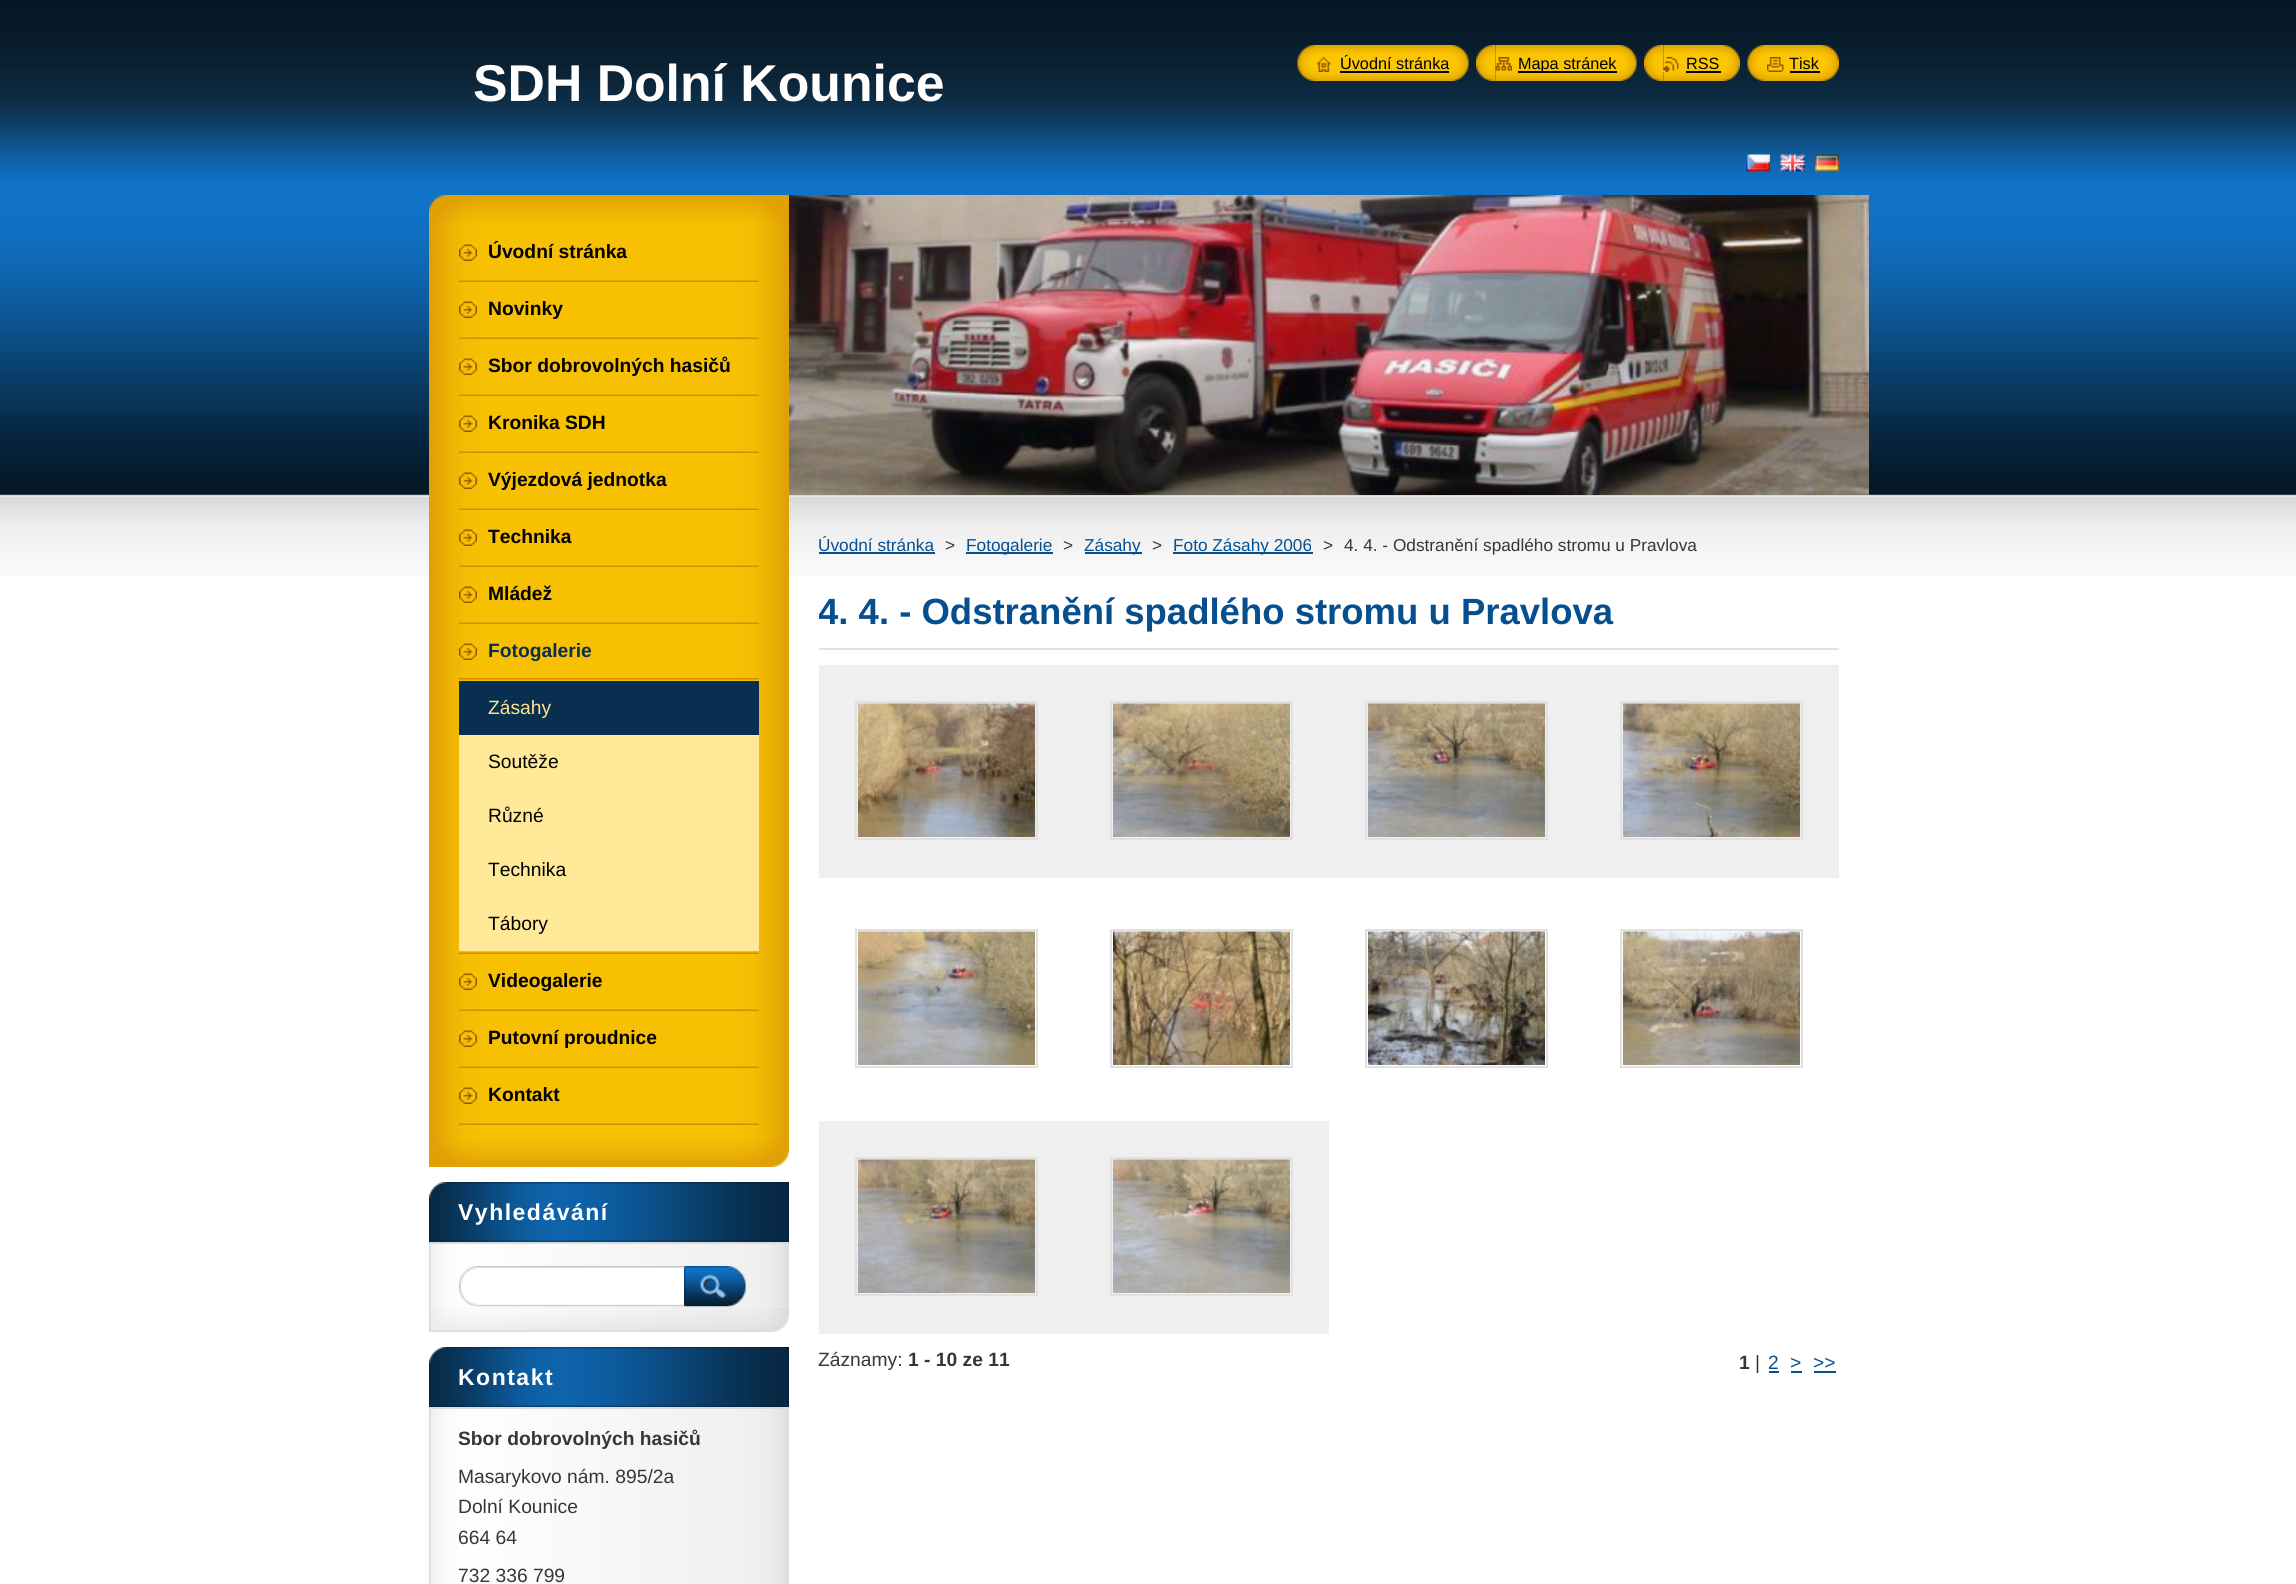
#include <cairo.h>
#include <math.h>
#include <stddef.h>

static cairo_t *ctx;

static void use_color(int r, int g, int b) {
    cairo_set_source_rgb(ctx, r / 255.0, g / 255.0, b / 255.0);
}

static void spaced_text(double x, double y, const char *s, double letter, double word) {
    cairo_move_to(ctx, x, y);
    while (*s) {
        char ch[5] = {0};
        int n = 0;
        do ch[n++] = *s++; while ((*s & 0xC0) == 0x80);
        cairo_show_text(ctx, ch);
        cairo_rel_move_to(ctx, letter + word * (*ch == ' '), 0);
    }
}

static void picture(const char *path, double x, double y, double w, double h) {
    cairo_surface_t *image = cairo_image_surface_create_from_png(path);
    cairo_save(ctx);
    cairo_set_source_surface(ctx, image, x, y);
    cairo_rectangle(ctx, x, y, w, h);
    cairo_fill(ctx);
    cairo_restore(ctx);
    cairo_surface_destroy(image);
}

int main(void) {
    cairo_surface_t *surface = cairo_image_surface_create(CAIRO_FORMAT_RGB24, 2296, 1584);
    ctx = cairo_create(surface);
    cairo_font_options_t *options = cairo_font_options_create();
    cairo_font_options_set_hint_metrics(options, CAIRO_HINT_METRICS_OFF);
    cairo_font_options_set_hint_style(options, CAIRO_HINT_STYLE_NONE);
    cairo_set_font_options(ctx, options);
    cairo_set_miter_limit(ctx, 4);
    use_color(255, 255, 255);
    cairo_paint(ctx);
    picture("img1.png", 0, 0, 2296, 576);
    cairo_select_font_face(ctx, "Liberation Sans", CAIRO_FONT_SLANT_NORMAL, CAIRO_FONT_WEIGHT_BOLD);
    cairo_set_font_size(ctx, 51.75);
    use_color(255, 255, 255);
    cairo_move_to(ctx, 473, 101);
    cairo_show_text(ctx, "SDH Dolní Kounice");
    picture("img2.png", 1297, 45, 20, 36);
    picture("img3.png", 1317, 45, 152, 36);
    picture("img4.png", 1317, 57, 14, 15);
    cairo_select_font_face(ctx, "Liberation Sans", CAIRO_FONT_SLANT_NORMAL, CAIRO_FONT_WEIGHT_NORMAL);
    cairo_set_font_size(ctx, 16.25);
    use_color(0, 0, 0);
    cairo_move_to(ctx, 1340, 69);
    cairo_show_text(ctx, "Úvodní stránka");
    cairo_rectangle(ctx, 1340, 71, 109, 2);
    cairo_fill(ctx);
    picture("img5.png", 1476, 45, 20, 36);
    picture("img6.png", 1495, 45, 142, 36);
    picture("img7.png", 1495, 57, 17, 14);
    cairo_rectangle(ctx, 1518, 71, 99, 2);
    cairo_fill(ctx);
    cairo_move_to(ctx, 1518, 69);
    cairo_show_text(ctx, "Mapa stránek");
    picture("img8.png", 1644, 45, 20, 36);
    picture("img9.png", 1663, 45, 77, 36);
    picture("img10.png", 1663, 57, 16, 15);
    cairo_move_to(ctx, 1686, 69);
    cairo_show_text(ctx, "RSS");
    cairo_rectangle(ctx, 1686, 71, 35, 2);
    cairo_fill(ctx);
    picture("img11.png", 1747, 45, 20, 36);
    picture("img12.png", 1767, 45, 72, 36);
    picture("img13.png", 1767, 57, 17, 15);
    cairo_move_to(ctx, 1789, 69);
    cairo_show_text(ctx, "Tisk");
    cairo_rectangle(ctx, 1790, 71, 30, 2);
    cairo_fill(ctx);
    picture("img14.png", 1746, 154, 24, 18);
    picture("img15.png", 1780, 154, 25, 18);
    picture("img16.png", 1815, 154, 24, 18);
    picture("img17.png", 429, 195, 360, 30);
    picture("img18.png", 429, 1137, 360, 30);
    picture("img19.png", 429, 225, 360, 912);
    picture("img20.png", 459, 280, 300, 2);
    picture("img21.png", 459, 244, 18, 17);
    cairo_select_font_face(ctx, "Liberation Sans", CAIRO_FONT_SLANT_NORMAL, CAIRO_FONT_WEIGHT_BOLD);
    cairo_set_font_size(ctx, 19.25);
    cairo_move_to(ctx, 488, 258);
    cairo_show_text(ctx, "Úvodní stránka");
    picture("img20.png", 459, 337, 300, 2);
    picture("img21.png", 459, 301, 18, 17);
    cairo_move_to(ctx, 488, 315);
    cairo_show_text(ctx, "Novinky");
    picture("img20.png", 459, 394, 300, 2);
    picture("img21.png", 459, 358, 18, 17);
    cairo_move_to(ctx, 488, 372);
    cairo_show_text(ctx, "Sbor dobrovolných hasičů");
    picture("img20.png", 459, 451, 300, 2);
    picture("img21.png", 459, 415, 18, 17);
    cairo_move_to(ctx, 488, 429);
    cairo_show_text(ctx, "Kronika SDH");
    picture("img20.png", 459, 508, 300, 2);
    picture("img21.png", 459, 472, 18, 17);
    cairo_move_to(ctx, 488, 486);
    cairo_show_text(ctx, "Výjezdová jednotka");
    picture("img20.png", 459, 565, 300, 2);
    picture("img21.png", 459, 529, 18, 17);
    cairo_move_to(ctx, 488, 543);
    cairo_show_text(ctx, "Technika");
    picture("img20.png", 459, 622, 300, 2);
    picture("img21.png", 459, 586, 18, 17);
    cairo_move_to(ctx, 488, 600);
    cairo_show_text(ctx, "Mládež");
    picture("img20.png", 459, 952, 300, 2);
    picture("img21.png", 459, 643, 18, 17);
    use_color(8, 47, 80);
    cairo_move_to(ctx, 488, 657);
    cairo_show_text(ctx, "Fotogalerie");
    picture("img22.png", 459, 678, 300, 2);
    cairo_rectangle(ctx, 459, 681, 300, 54);
    cairo_fill(ctx);
    cairo_select_font_face(ctx, "Liberation Sans", CAIRO_FONT_SLANT_NORMAL, CAIRO_FONT_WEIGHT_NORMAL);
    use_color(255, 225, 146);
    cairo_move_to(ctx, 488, 714);
    cairo_show_text(ctx, "Zásahy");
    use_color(255, 233, 152);
    cairo_rectangle(ctx, 459, 735, 300, 216);
    cairo_fill(ctx);
    use_color(0, 0, 0);
    cairo_move_to(ctx, 488, 768);
    cairo_show_text(ctx, "Soutěže");
    cairo_move_to(ctx, 488, 822);
    cairo_show_text(ctx, "Různé");
    cairo_move_to(ctx, 488, 876);
    cairo_show_text(ctx, "Technika");
    cairo_move_to(ctx, 488, 930);
    cairo_show_text(ctx, "Tábory");
    picture("img20.png", 459, 1009, 300, 2);
    picture("img21.png", 459, 973, 18, 17);
    cairo_select_font_face(ctx, "Liberation Sans", CAIRO_FONT_SLANT_NORMAL, CAIRO_FONT_WEIGHT_BOLD);
    cairo_move_to(ctx, 488, 987);
    cairo_show_text(ctx, "Videogalerie");
    picture("img20.png", 459, 1066, 300, 2);
    picture("img21.png", 459, 1030, 18, 17);
    cairo_move_to(ctx, 488, 1044);
    cairo_show_text(ctx, "Putovní proudnice");
    picture("img20.png", 459, 1123, 300, 2);
    picture("img21.png", 459, 1087, 18, 17);
    cairo_move_to(ctx, 488, 1101);
    cairo_show_text(ctx, "Kontakt");
    picture("img23.png", 429, 1306, 360, 26);
    picture("img24.png", 429, 1182, 360, 60);
    cairo_set_font_size(ctx, 23);
    use_color(255, 255, 255);
    spaced_text(458, 1220, "Vyhledávání", 1.5, 0);
    picture("img25.png", 429, 1244, 360, 63);
    use_color(219, 219, 219);
    cairo_rectangle(ctx, 429, 1242, 360, 2);
    cairo_fill(ctx);
    picture("img26.png", 459, 1266, 227, 41);
    picture("img27.png", 684, 1266, 62, 41);
    picture("img24.png", 429, 1347, 360, 60);
    use_color(255, 255, 255);
    spaced_text(458, 1385, "Kontakt", 1.5, 0);
    picture("img28.png", 429, 1409, 360, 175);
    use_color(219, 219, 219);
    cairo_rectangle(ctx, 429, 1407, 360, 2);
    cairo_fill(ctx);
    cairo_set_font_size(ctx, 19.25);
    use_color(54, 54, 54);
    cairo_move_to(ctx, 458, 1445);
    cairo_show_text(ctx, "Sbor dobrovolných hasičů");
    cairo_select_font_face(ctx, "Liberation Sans", CAIRO_FONT_SLANT_NORMAL, CAIRO_FONT_WEIGHT_NORMAL);
    cairo_move_to(ctx, 458, 1483);
    cairo_show_text(ctx, "Masarykovo nám. 895/2a");
    cairo_move_to(ctx, 458, 1513);
    cairo_show_text(ctx, "Dolní Kounice");
    cairo_move_to(ctx, 458, 1544);
    cairo_show_text(ctx, "664 64");
    cairo_move_to(ctx, 458, 1582);
    cairo_show_text(ctx, "732 336 799");
    picture("img29.png", 789, 195, 1080, 300);
    cairo_set_font_size(ctx, 17.25);
    use_color(5, 79, 143);
    cairo_move_to(ctx, 818, 551);
    cairo_show_text(ctx, "Úvodní stránka");
    cairo_rectangle(ctx, 819, 552, 116, 2);
    cairo_fill(ctx);
    use_color(54, 54, 54);
    cairo_move_to(ctx, 945, 551);
    cairo_show_text(ctx, ">");
    use_color(5, 79, 143);
    cairo_rectangle(ctx, 966, 552, 87, 2);
    cairo_fill(ctx);
    cairo_move_to(ctx, 966, 551);
    cairo_show_text(ctx, "Fotogalerie");
    use_color(54, 54, 54);
    cairo_move_to(ctx, 1063, 551);
    cairo_show_text(ctx, ">");
    use_color(5, 79, 143);
    cairo_rectangle(ctx, 1085, 552, 57, 2);
    cairo_fill(ctx);
    cairo_move_to(ctx, 1084, 551);
    cairo_show_text(ctx, "Zásahy");
    use_color(54, 54, 54);
    cairo_move_to(ctx, 1152, 551);
    cairo_show_text(ctx, ">");
    use_color(5, 79, 143);
    cairo_rectangle(ctx, 1173, 552, 140, 2);
    cairo_fill(ctx);
    cairo_move_to(ctx, 1173, 551);
    cairo_show_text(ctx, "Foto Zásahy 2006");
    use_color(54, 54, 54);
    cairo_move_to(ctx, 1323, 551);
    cairo_show_text(ctx, ">");
    cairo_move_to(ctx, 1344, 551);
    cairo_show_text(ctx, "4. 4. - Odstranění spadlého stromu u Pravlova");
    use_color(225, 225, 225);
    cairo_rectangle(ctx, 819, 648, 1020, 2);
    cairo_fill(ctx);
    cairo_save(ctx);
    cairo_rectangle(ctx, 819, 591, 1020, 786);
    cairo_clip(ctx);
    cairo_select_font_face(ctx, "Liberation Sans", CAIRO_FONT_SLANT_NORMAL, CAIRO_FONT_WEIGHT_BOLD);
    cairo_set_font_size(ctx, 36.5);
    use_color(5, 79, 143);
    cairo_move_to(ctx, 818, 624);
    cairo_show_text(ctx, "4. 4. - Odstranění spadlého stromu u Pravlova");
    cairo_restore(ctx);
    use_color(239, 239, 239);
    cairo_rectangle(ctx, 819, 665, 1020, 213);
    cairo_fill(ctx);
    cairo_rectangle(ctx, 856, 702, 181, 137);
    use_color(225, 225, 225);
    cairo_stroke(ctx);
    picture("img30.png", 858, 703, 177, 134);
    cairo_rectangle(ctx, 1111, 702, 181, 137);
    cairo_stroke(ctx);
    picture("img31.png", 1113, 703, 177, 134);
    cairo_rectangle(ctx, 1366, 702, 181, 137);
    cairo_stroke(ctx);
    picture("img32.png", 1368, 703, 177, 134);
    cairo_rectangle(ctx, 1621, 702, 181, 137);
    cairo_stroke(ctx);
    picture("img33.png", 1623, 703, 177, 134);
    cairo_rectangle(ctx, 856, 930, 181, 137);
    cairo_stroke(ctx);
    picture("img34.png", 858, 931, 177, 134);
    cairo_rectangle(ctx, 1111, 930, 181, 137);
    cairo_stroke(ctx);
    picture("img35.png", 1113, 931, 177, 134);
    cairo_rectangle(ctx, 1366, 930, 181, 137);
    cairo_stroke(ctx);
    picture("img36.png", 1368, 931, 177, 134);
    cairo_rectangle(ctx, 1621, 930, 181, 137);
    cairo_stroke(ctx);
    picture("img37.png", 1623, 931, 177, 134);
    use_color(239, 239, 239);
    cairo_rectangle(ctx, 819, 1121, 510, 213);
    cairo_fill(ctx);
    cairo_rectangle(ctx, 856, 1158, 181, 137);
    use_color(225, 225, 225);
    cairo_stroke(ctx);
    picture("img38.png", 858, 1159, 177, 134);
    cairo_rectangle(ctx, 1111, 1158, 181, 137);
    cairo_stroke(ctx);
    picture("img39.png", 1113, 1159, 177, 134);
    cairo_set_font_size(ctx, 19.25);
    use_color(54, 54, 54);
    cairo_move_to(ctx, 818, 1366);
    cairo_show_text(ctx, "Záznamy:");
    cairo_select_font_face(ctx, "Liberation Sans", CAIRO_FONT_SLANT_NORMAL, CAIRO_FONT_WEIGHT_BOLD);
    cairo_move_to(ctx, 908, 1366);
    cairo_show_text(ctx, "1 - 10 ze 11");
    cairo_move_to(ctx, 1739, 1369);
    cairo_show_text(ctx, "1");
    cairo_select_font_face(ctx, "Liberation Sans", CAIRO_FONT_SLANT_NORMAL, CAIRO_FONT_WEIGHT_NORMAL);
    cairo_move_to(ctx, 1755, 1369);
    cairo_show_text(ctx, "|");
    use_color(5, 79, 143);
    cairo_move_to(ctx, 1768, 1369);
    cairo_show_text(ctx, "2");
    cairo_rectangle(ctx, 1769, 1371, 10, 2);
    cairo_fill(ctx);
    cairo_move_to(ctx, 1790, 1369);
    cairo_show_text(ctx, ">");
    cairo_rectangle(ctx, 1791, 1371, 11, 2);
    cairo_fill(ctx);
    cairo_move_to(ctx, 1813, 1369);
    cairo_show_text(ctx, ">>");
    cairo_rectangle(ctx, 1814, 1371, 22, 2);
    cairo_fill(ctx);
    cairo_surface_write_to_png(surface, "result.png");
    cairo_font_options_destroy(options);
    cairo_destroy(ctx);
    cairo_surface_destroy(surface);
    return 0;
}
